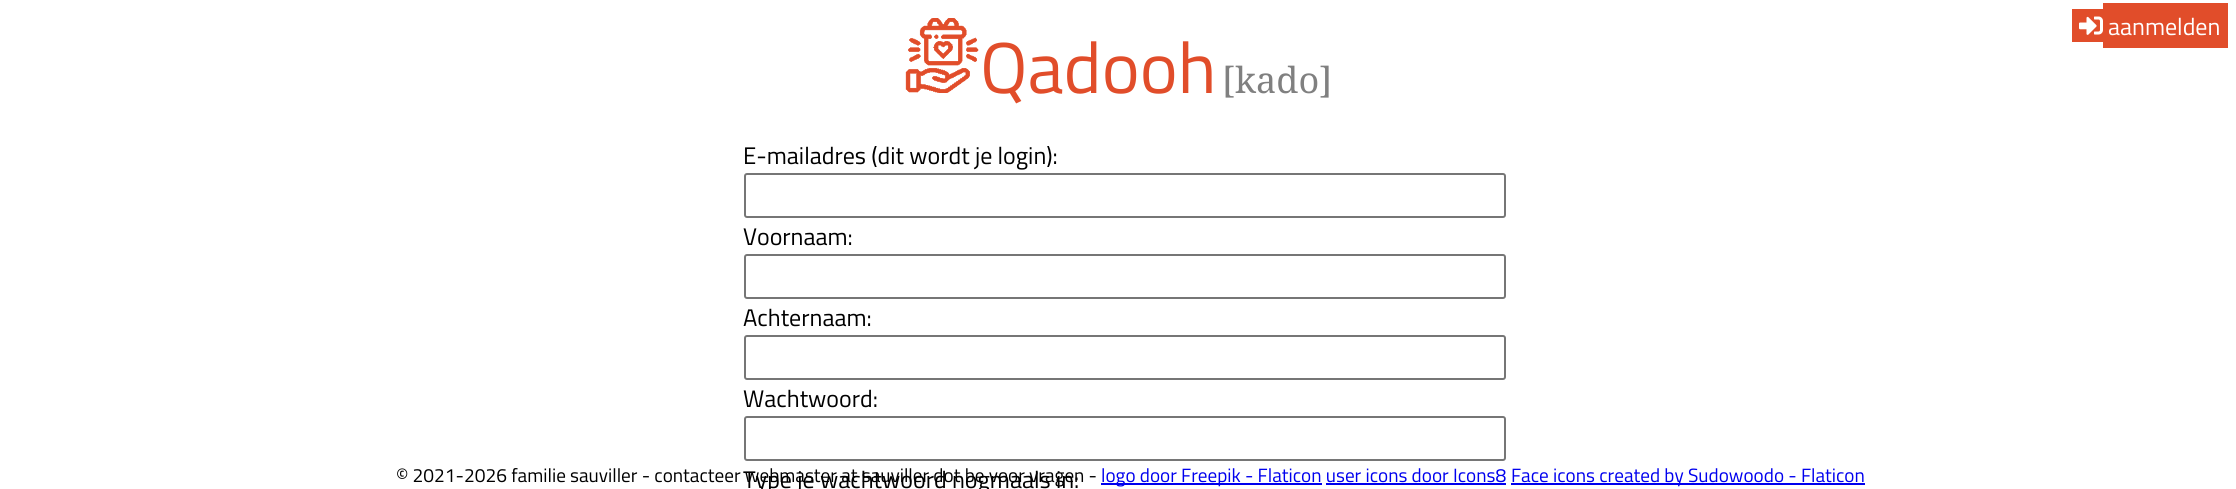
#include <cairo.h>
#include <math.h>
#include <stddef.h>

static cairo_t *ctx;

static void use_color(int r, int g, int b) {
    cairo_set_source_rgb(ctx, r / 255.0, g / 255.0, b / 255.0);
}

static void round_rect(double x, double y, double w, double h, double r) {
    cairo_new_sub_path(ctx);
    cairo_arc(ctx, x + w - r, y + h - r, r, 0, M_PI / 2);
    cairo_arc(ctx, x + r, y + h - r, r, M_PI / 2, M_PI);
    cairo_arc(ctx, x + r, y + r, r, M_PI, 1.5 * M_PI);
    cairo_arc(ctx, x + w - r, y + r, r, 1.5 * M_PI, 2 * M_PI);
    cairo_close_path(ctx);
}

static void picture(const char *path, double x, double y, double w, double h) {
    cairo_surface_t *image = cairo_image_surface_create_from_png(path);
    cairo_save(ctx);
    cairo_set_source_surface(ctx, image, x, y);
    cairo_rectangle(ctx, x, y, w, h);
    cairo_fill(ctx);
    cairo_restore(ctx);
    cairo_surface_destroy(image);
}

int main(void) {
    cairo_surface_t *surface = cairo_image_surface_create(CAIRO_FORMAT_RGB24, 2236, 489);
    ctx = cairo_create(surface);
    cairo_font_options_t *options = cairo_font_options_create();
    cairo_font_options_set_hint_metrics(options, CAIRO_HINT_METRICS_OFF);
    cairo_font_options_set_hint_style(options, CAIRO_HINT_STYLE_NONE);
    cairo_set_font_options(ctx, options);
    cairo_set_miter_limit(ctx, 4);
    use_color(255, 255, 255);
    cairo_paint(ctx);
    use_color(225, 77, 42);
    cairo_rectangle(ctx, 2072, 9, 31, 33);
    cairo_fill(ctx);
    cairo_rectangle(ctx, 2103, 3, 125, 45);
    cairo_fill(ctx);
    picture("img1.png", 2079, 16, 24, 19);
    cairo_select_font_face(ctx, "Titillium Web", CAIRO_FONT_SLANT_NORMAL, CAIRO_FONT_WEIGHT_NORMAL);
    cairo_set_font_size(ctx, 24);
    use_color(255, 255, 255);
    cairo_move_to(ctx, 2108, 35);
    cairo_show_text(ctx, "aanmelden");
    picture("img2.png", 905, 18, 74, 75);
    cairo_set_font_size(ctx, 72);
    use_color(225, 77, 42);
    cairo_move_to(ctx, 980, 93);
    cairo_show_text(ctx, "Qadooh");
    cairo_select_font_face(ctx, "Noto Serif", CAIRO_FONT_SLANT_NORMAL, CAIRO_FONT_WEIGHT_NORMAL);
    cairo_set_font_size(ctx, 36);
    use_color(128, 128, 128);
    cairo_move_to(ctx, 1222, 93);
    cairo_show_text(ctx, "[kado]");
    cairo_select_font_face(ctx, "Titillium Web", CAIRO_FONT_SLANT_NORMAL, CAIRO_FONT_WEIGHT_NORMAL);
    cairo_set_font_size(ctx, 24);
    use_color(0, 0, 0);
    cairo_move_to(ctx, 743, 164);
    cairo_show_text(ctx, "E-mailadres (dit wordt je login):");
    round_rect(745, 174, 760, 43, 2);
    use_color(118, 118, 118);
    cairo_stroke(ctx);
    use_color(0, 0, 0);
    cairo_move_to(ctx, 743, 245);
    cairo_show_text(ctx, "Voornaam:");
    round_rect(745, 255, 760, 43, 2);
    use_color(118, 118, 118);
    cairo_stroke(ctx);
    use_color(0, 0, 0);
    cairo_move_to(ctx, 743, 326);
    cairo_show_text(ctx, "Achternaam:");
    round_rect(745, 336, 760, 43, 2);
    use_color(118, 118, 118);
    cairo_stroke(ctx);
    use_color(0, 0, 0);
    cairo_move_to(ctx, 743, 407);
    cairo_show_text(ctx, "Wachtwoord:");
    round_rect(745, 417, 760, 43, 2);
    use_color(118, 118, 118);
    cairo_stroke(ctx);
    use_color(0, 0, 0);
    cairo_move_to(ctx, 743, 488);
    cairo_show_text(ctx, "Type je wachtwoord nogmaals in:");
    cairo_set_font_size(ctx, 19.2);
    cairo_move_to(ctx, 396, 482);
    cairo_show_text(ctx, "© 2021-2026 familie sauviller - contacteer webmaster at sauviller dot be voor vragen -");
    use_color(0, 0, 238);
    cairo_rectangle(ctx, 1101, 483, 221, 2);
    cairo_fill(ctx);
    cairo_move_to(ctx, 1101, 482);
    cairo_show_text(ctx, "logo door Freepik - Flaticon user icons door Icons8");
    cairo_rectangle(ctx, 1511, 483, 354, 2);
    cairo_fill(ctx);
    cairo_move_to(ctx, 1511, 482);
    cairo_show_text(ctx, "Face icons created by Sudowoodo - Flaticon");
    cairo_rectangle(ctx, 1326, 483, 180, 2);
    cairo_fill(ctx);
    cairo_surface_write_to_png(surface, "result.png");
    cairo_font_options_destroy(options);
    cairo_destroy(ctx);
    cairo_surface_destroy(surface);
    return 0;
}
